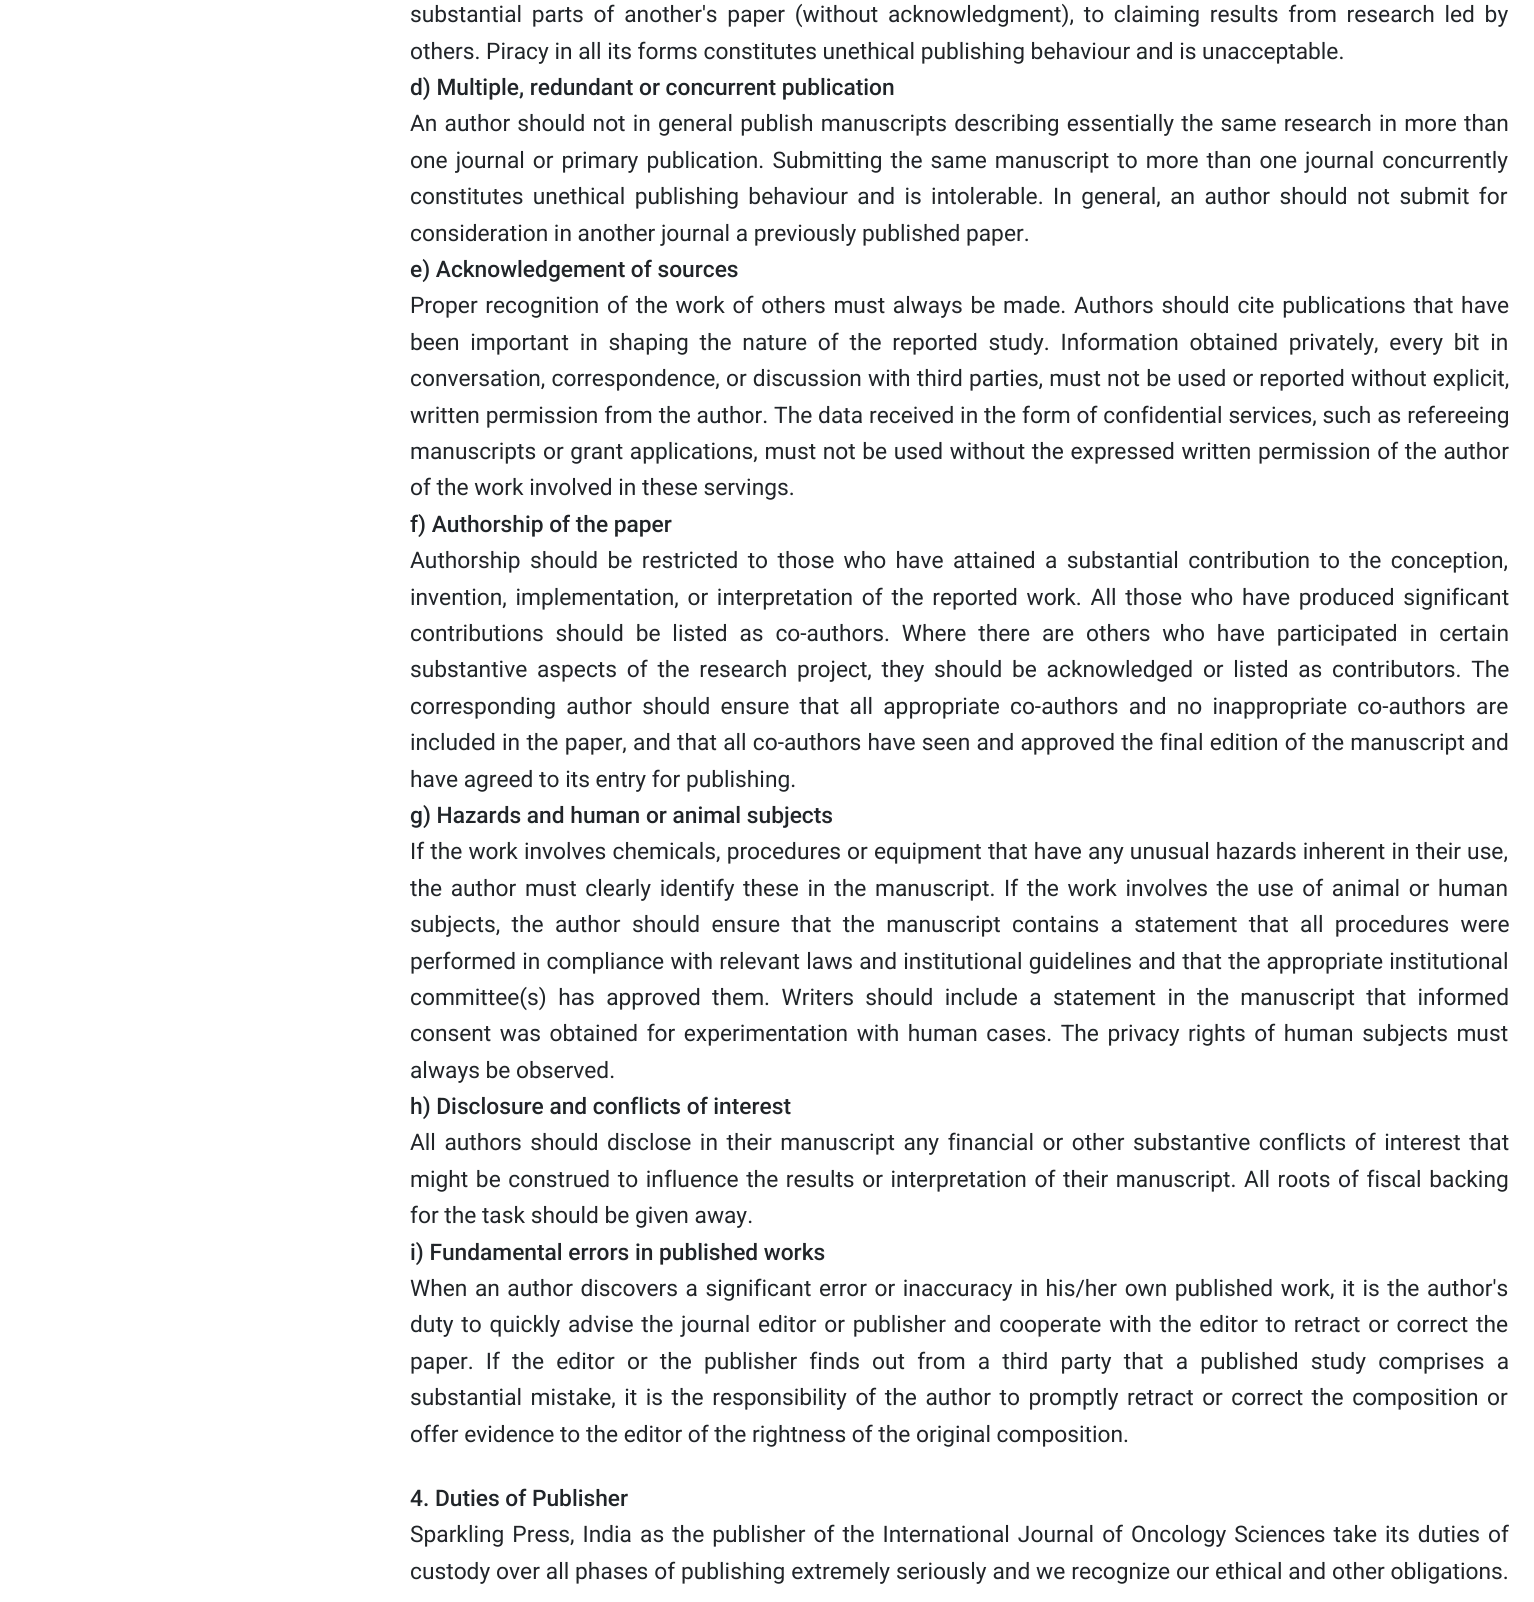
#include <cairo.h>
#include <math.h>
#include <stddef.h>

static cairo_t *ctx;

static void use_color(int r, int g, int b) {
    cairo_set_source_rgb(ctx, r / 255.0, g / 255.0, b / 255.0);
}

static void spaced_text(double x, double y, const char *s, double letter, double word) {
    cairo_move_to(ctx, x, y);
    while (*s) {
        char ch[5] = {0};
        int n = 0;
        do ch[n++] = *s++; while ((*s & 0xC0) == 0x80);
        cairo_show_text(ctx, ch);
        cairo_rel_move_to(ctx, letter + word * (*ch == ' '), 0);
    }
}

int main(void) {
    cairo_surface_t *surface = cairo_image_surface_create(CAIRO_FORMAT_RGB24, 1534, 1602);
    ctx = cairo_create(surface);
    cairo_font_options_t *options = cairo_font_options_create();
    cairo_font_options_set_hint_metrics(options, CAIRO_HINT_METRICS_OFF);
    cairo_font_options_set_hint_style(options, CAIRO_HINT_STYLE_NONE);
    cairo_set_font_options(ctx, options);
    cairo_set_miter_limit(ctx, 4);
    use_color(255, 255, 255);
    cairo_paint(ctx);
    cairo_select_font_face(ctx, "Roboto", CAIRO_FONT_SLANT_NORMAL, CAIRO_FONT_WEIGHT_NORMAL);
    cairo_set_font_size(ctx, 22.75);
    use_color(33, 37, 41);
    spaced_text(410, 22, "substantial parts of another's paper (without acknowledgment), to claiming results from research led by", 0, 4.1);
    cairo_move_to(ctx, 410, 59);
    cairo_show_text(ctx, "others. Piracy in all its forms constitutes unethical publishing behaviour and is unacceptable.");
    cairo_select_font_face(ctx, "Roboto Medium", CAIRO_FONT_SLANT_NORMAL, CAIRO_FONT_WEIGHT_NORMAL);
    cairo_move_to(ctx, 410, 95);
    cairo_show_text(ctx, "d) Multiple, redundant or concurrent publication");
    cairo_select_font_face(ctx, "Roboto", CAIRO_FONT_SLANT_NORMAL, CAIRO_FONT_WEIGHT_NORMAL);
    spaced_text(410, 131, "An author should not in general publish manuscripts describing essentially the same research in more than", 0, 1.5);
    spaced_text(410, 168, "one journal or primary publication. Submitting the same manuscript to more than one journal concurrently", 0, 2.4);
    spaced_text(410, 204, "constitutes unethical publishing behaviour and is intolerable. In general, an author should not submit for", 0, 3.75);
    cairo_move_to(ctx, 410, 241);
    cairo_show_text(ctx, "consideration in another journal a previously published paper.");
    cairo_select_font_face(ctx, "Roboto Medium", CAIRO_FONT_SLANT_NORMAL, CAIRO_FONT_WEIGHT_NORMAL);
    cairo_move_to(ctx, 410, 277);
    cairo_show_text(ctx, "e) Acknowledgement of sources");
    cairo_select_font_face(ctx, "Roboto", CAIRO_FONT_SLANT_NORMAL, CAIRO_FONT_WEIGHT_NORMAL);
    spaced_text(410, 313, "Proper recognition of the work of others must always be made. Authors should cite publications that have", 0, 2.1);
    spaced_text(410, 350, "been important in shaping the nature of the reported study. Information obtained privately, every bit in", 0, 5.1);
    spaced_text(410, 386, "conversation, correspondence, or discussion with third parties, must not be used or reported without explicit,", 0, 0.5);
    spaced_text(410, 423, "written permission from the author. The data received in the form of confidential services, such as refereeing", 0, 0.25);
    spaced_text(410, 459, "manuscripts or grant applications, must not be used without the expressed written permission of the author", 0, 1);
    cairo_move_to(ctx, 410, 495);
    cairo_show_text(ctx, "of the work involved in these servings.");
    cairo_select_font_face(ctx, "Roboto Medium", CAIRO_FONT_SLANT_NORMAL, CAIRO_FONT_WEIGHT_NORMAL);
    cairo_move_to(ctx, 410, 532);
    cairo_show_text(ctx, "f) Authorship of the paper");
    cairo_select_font_face(ctx, "Roboto", CAIRO_FONT_SLANT_NORMAL, CAIRO_FONT_WEIGHT_NORMAL);
    spaced_text(410, 568, "Authorship should be restricted to those who have attained a substantial contribution to the conception,", 0, 3.75);
    spaced_text(410, 605, "invention, implementation, or interpretation of the reported work. All those who have produced significant", 0, 3.1);
    spaced_text(410, 641, "contributions should be listed as co-authors. Where there are others who have participated in certain", 0, 6.25);
    spaced_text(410, 677, "substantive aspects of the research project, they should be acknowledged or listed as contributors. The", 0, 4.1);
    spaced_text(410, 714, "corresponding author should ensure that all appropriate co-authors and no inappropriate co-authors are", 0, 4.6);
    spaced_text(410, 750, "included in the paper, and that all co-authors have seen and approved the final edition of the manuscript and", 0, 0.6);
    cairo_move_to(ctx, 410, 787);
    cairo_show_text(ctx, "have agreed to its entry for publishing.");
    cairo_select_font_face(ctx, "Roboto Medium", CAIRO_FONT_SLANT_NORMAL, CAIRO_FONT_WEIGHT_NORMAL);
    cairo_move_to(ctx, 410, 823);
    cairo_show_text(ctx, "g) Hazards and human or animal subjects");
    cairo_select_font_face(ctx, "Roboto", CAIRO_FONT_SLANT_NORMAL, CAIRO_FONT_WEIGHT_NORMAL);
    spaced_text(410, 859, "If the work involves chemicals, procedures or equipment that have any unusual hazards inherent in their use,", 0, 0.5);
    spaced_text(410, 896, "the author must clearly identify these in the manuscript. If the work involves the use of animal or human", 0, 3);
    spaced_text(410, 932, "subjects, the author should ensure that the manuscript contains a statement that all procedures were", 0, 5.75);
    spaced_text(410, 969, "performed in compliance with relevant laws and institutional guidelines and that the appropriate institutional", 0, 0.6);
    spaced_text(410, 1005, "committee(s) has approved them. Writers should include a statement in the manuscript that informed", 0, 5.75);
    spaced_text(410, 1041, "consent was obtained for experimentation with human cases. The privacy rights of human subjects must", 0, 2.9);
    cairo_move_to(ctx, 410, 1078);
    cairo_show_text(ctx, "always be observed.");
    cairo_select_font_face(ctx, "Roboto Medium", CAIRO_FONT_SLANT_NORMAL, CAIRO_FONT_WEIGHT_NORMAL);
    cairo_move_to(ctx, 410, 1114);
    cairo_show_text(ctx, "h) Disclosure and conflicts of interest");
    cairo_select_font_face(ctx, "Roboto", CAIRO_FONT_SLANT_NORMAL, CAIRO_FONT_WEIGHT_NORMAL);
    spaced_text(410, 1150, "All authors should disclose in their manuscript any financial or other substantive conflicts of interest that", 0, 2.9);
    spaced_text(410, 1187, "might be construed to influence the results or interpretation of their manuscript. All roots of fiscal backing", 0, 2);
    cairo_move_to(ctx, 410, 1223);
    cairo_show_text(ctx, "for the task should be given away.");
    cairo_select_font_face(ctx, "Roboto Medium", CAIRO_FONT_SLANT_NORMAL, CAIRO_FONT_WEIGHT_NORMAL);
    cairo_move_to(ctx, 410, 1260);
    cairo_show_text(ctx, "i) Fundamental errors in published works");
    cairo_select_font_face(ctx, "Roboto", CAIRO_FONT_SLANT_NORMAL, CAIRO_FONT_WEIGHT_NORMAL);
    spaced_text(410, 1296, "When an author discovers a significant error or inaccuracy in his/her own published work, it is the author's", 0, 1.9);
    spaced_text(410, 1332, "duty to quickly advise the journal editor or publisher and cooperate with the editor to retract or correct the", 0, 2.1);
    spaced_text(410, 1369, "paper. If the editor or the publisher finds out from a third party that a published study comprises a", 0, 6.5);
    spaced_text(410, 1405, "substantial mistake, it is the responsibility of the author to promptly retract or correct the composition or", 0, 2.9);
    cairo_move_to(ctx, 410, 1442);
    cairo_show_text(ctx, "offer evidence to the editor of the rightness of the original composition.");
    cairo_select_font_face(ctx, "Roboto Medium", CAIRO_FONT_SLANT_NORMAL, CAIRO_FONT_WEIGHT_NORMAL);
    cairo_move_to(ctx, 410, 1506);
    cairo_show_text(ctx, "4. Duties of Publisher");
    cairo_select_font_face(ctx, "Roboto", CAIRO_FONT_SLANT_NORMAL, CAIRO_FONT_WEIGHT_NORMAL);
    spaced_text(410, 1542, "Sparkling Press, India as the publisher of the International Journal of Oncology Sciences take its duties of", 0, 2.4);
    spaced_text(410, 1579, "custody over all phases of publishing extremely seriously and we recognize our ethical and other obligations.", 0, 0.25);
    cairo_surface_write_to_png(surface, "result.png");
    cairo_font_options_destroy(options);
    cairo_destroy(ctx);
    cairo_surface_destroy(surface);
    return 0;
}
